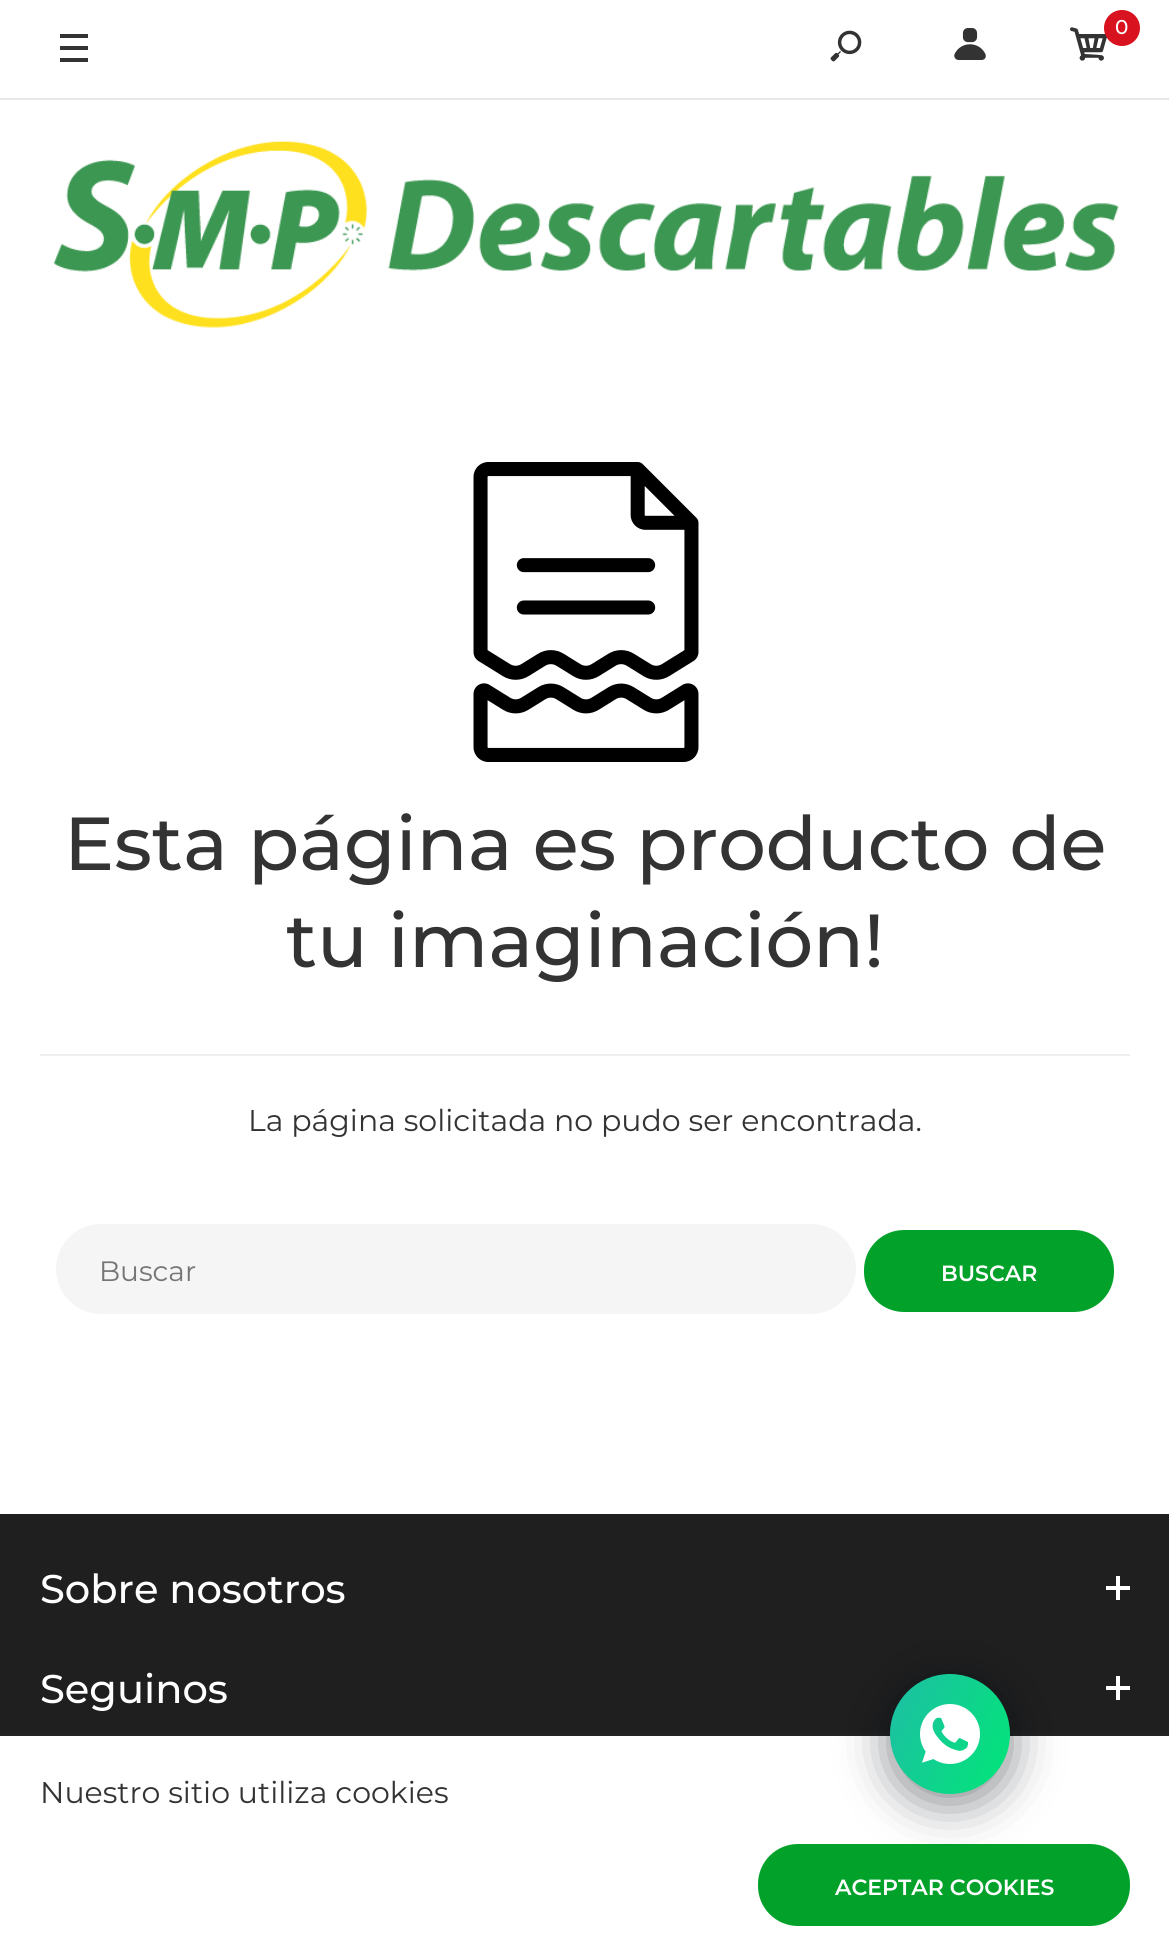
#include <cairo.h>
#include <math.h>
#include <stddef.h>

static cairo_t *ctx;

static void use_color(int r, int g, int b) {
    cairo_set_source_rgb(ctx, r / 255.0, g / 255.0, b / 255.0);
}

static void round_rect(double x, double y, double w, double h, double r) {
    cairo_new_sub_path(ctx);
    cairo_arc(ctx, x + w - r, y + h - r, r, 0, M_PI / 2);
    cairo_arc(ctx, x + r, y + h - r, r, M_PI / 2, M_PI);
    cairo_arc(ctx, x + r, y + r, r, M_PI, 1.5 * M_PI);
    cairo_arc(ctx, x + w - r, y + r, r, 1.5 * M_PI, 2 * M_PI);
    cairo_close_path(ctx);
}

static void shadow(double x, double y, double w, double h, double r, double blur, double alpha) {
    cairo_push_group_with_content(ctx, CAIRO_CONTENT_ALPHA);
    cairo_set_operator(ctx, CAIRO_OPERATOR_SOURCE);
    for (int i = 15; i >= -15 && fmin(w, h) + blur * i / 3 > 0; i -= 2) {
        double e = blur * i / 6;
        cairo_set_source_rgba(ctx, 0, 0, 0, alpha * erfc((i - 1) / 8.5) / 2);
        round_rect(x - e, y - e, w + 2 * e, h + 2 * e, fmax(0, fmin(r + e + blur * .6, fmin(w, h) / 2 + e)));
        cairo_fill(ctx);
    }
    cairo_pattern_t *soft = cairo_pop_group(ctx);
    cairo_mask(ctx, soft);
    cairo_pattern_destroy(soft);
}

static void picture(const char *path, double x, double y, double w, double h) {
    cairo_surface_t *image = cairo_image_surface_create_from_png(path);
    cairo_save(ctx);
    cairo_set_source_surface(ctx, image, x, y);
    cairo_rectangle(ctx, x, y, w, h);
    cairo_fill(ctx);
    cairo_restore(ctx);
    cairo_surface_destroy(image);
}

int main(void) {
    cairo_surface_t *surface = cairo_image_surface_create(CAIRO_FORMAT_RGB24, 1169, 1953);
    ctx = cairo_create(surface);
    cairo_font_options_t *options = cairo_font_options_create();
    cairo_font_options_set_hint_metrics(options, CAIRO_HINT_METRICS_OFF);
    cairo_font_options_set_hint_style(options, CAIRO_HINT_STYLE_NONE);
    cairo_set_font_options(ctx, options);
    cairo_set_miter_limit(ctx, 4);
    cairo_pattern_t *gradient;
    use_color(255, 255, 255);
    cairo_paint(ctx);
    use_color(231, 231, 231);
    cairo_rectangle(ctx, 0, 98, 1169, 2);
    cairo_fill(ctx);
    use_color(51, 51, 51);
    cairo_rectangle(ctx, 60, 46, 28, 4);
    cairo_fill(ctx);
    cairo_rectangle(ctx, 60, 34, 28, 4);
    cairo_fill(ctx);
    cairo_rectangle(ctx, 60, 58, 28, 4);
    cairo_fill(ctx);
    picture("img1.png", 830, 30, 32, 32);
    picture("img2.png", 954, 28, 32, 32);
    picture("img3.png", 1070, 27, 37, 34);
    use_color(217, 18, 31);
    cairo_arc(ctx, 1122, 28, 18, 0, 2 * M_PI);
    cairo_fill(ctx);
    cairo_select_font_face(ctx, "Montserrat Medium", CAIRO_FONT_SLANT_NORMAL, CAIRO_FONT_WEIGHT_NORMAL);
    cairo_set_font_size(ctx, 20);
    use_color(255, 255, 255);
    cairo_move_to(ctx, 1115, 34);
    cairo_show_text(ctx, "0");
    picture("img4.png", 53, 141, 1066, 187);
    use_color(238, 238, 238);
    cairo_rectangle(ctx, 40, 1054, 1090, 2);
    cairo_fill(ctx);
    picture("img5.png", 473, 462, 226, 300);
    cairo_set_font_size(ctx, 75);
    use_color(51, 51, 51);
    cairo_move_to(ctx, 64, 870);
    cairo_show_text(ctx, "Esta página es producto de");
    cairo_move_to(ctx, 286, 967);
    cairo_show_text(ctx, "tu imaginación!");
    cairo_select_font_face(ctx, "Montserrat", CAIRO_FONT_SLANT_NORMAL, CAIRO_FONT_WEIGHT_NORMAL);
    cairo_set_font_size(ctx, 30);
    cairo_move_to(ctx, 248, 1131);
    cairo_show_text(ctx, "La página solicitada no pudo ser encontrada.");
    use_color(245, 245, 245);
    round_rect(57, 1225, 798, 88, 44);
    cairo_fill_preserve(ctx);
    cairo_stroke(ctx);
    cairo_set_font_size(ctx, 28);
    use_color(117, 117, 117);
    cairo_move_to(ctx, 99, 1281);
    cairo_show_text(ctx, "Buscar");
    use_color(2, 162, 42);
    round_rect(864, 1230, 250, 82, 40);
    cairo_fill(ctx);
    cairo_select_font_face(ctx, "Montserrat SemiBold", CAIRO_FONT_SLANT_NORMAL, CAIRO_FONT_WEIGHT_NORMAL);
    cairo_set_font_size(ctx, 22);
    use_color(255, 255, 255);
    cairo_move_to(ctx, 941, 1281);
    cairo_show_text(ctx, "BUSCAR");
    use_color(31, 31, 31);
    cairo_rectangle(ctx, 0, 1514, 1169, 222);
    cairo_fill(ctx);
    cairo_select_font_face(ctx, "Montserrat Medium", CAIRO_FONT_SLANT_NORMAL, CAIRO_FONT_WEIGHT_NORMAL);
    cairo_set_font_size(ctx, 40);
    use_color(255, 255, 255);
    cairo_move_to(ctx, 40, 1603);
    cairo_show_text(ctx, "Sobre nosotros");
    picture("img6.png", 1106, 1576, 24, 24);
    cairo_move_to(ctx, 40, 1703);
    cairo_show_text(ctx, "Seguinos");
    picture("img6.png", 1106, 1676, 24, 24);
    use_color(50, 50, 50);
    shadow(0, 1732, 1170, 218, 0, 2, 0.2);
    use_color(255, 255, 255);
    cairo_rectangle(ctx, 0, 1736, 1169, 217);
    cairo_fill(ctx);
    use_color(2, 162, 42);
    round_rect(758, 1844, 372, 82, 40);
    cairo_fill(ctx);
    use_color(2, 6, 16);
    shadow(890, 1682, 120, 120, 60, 24, 0.5);
    gradient = cairo_pattern_create_linear(878, 1700, 1022, 1768);
    cairo_pattern_add_color_stop_rgba(gradient, 0, 0.118, 0.745, 0.647, 1);
    cairo_pattern_add_color_stop_rgba(gradient, 1, 0.004, 0.902, 0.467, 1);
    cairo_set_source(ctx, gradient);
    cairo_pattern_destroy(gradient);
    cairo_arc(ctx, 950, 1734, 60, 0, 2 * M_PI);
    cairo_fill(ctx);
    picture("img7.png", 920, 1704, 60, 60);
    cairo_select_font_face(ctx, "Montserrat", CAIRO_FONT_SLANT_NORMAL, CAIRO_FONT_WEIGHT_NORMAL);
    cairo_set_font_size(ctx, 30);
    use_color(51, 51, 51);
    cairo_move_to(ctx, 40, 1803);
    cairo_show_text(ctx, "Nuestro sitio utiliza cookies");
    cairo_select_font_face(ctx, "Montserrat SemiBold", CAIRO_FONT_SLANT_NORMAL, CAIRO_FONT_WEIGHT_NORMAL);
    cairo_set_font_size(ctx, 22);
    use_color(255, 255, 255);
    cairo_move_to(ctx, 835, 1895);
    cairo_show_text(ctx, "ACEPTAR COOKIES");
    cairo_surface_write_to_png(surface, "result.png");
    cairo_font_options_destroy(options);
    cairo_destroy(ctx);
    cairo_surface_destroy(surface);
    return 0;
}
